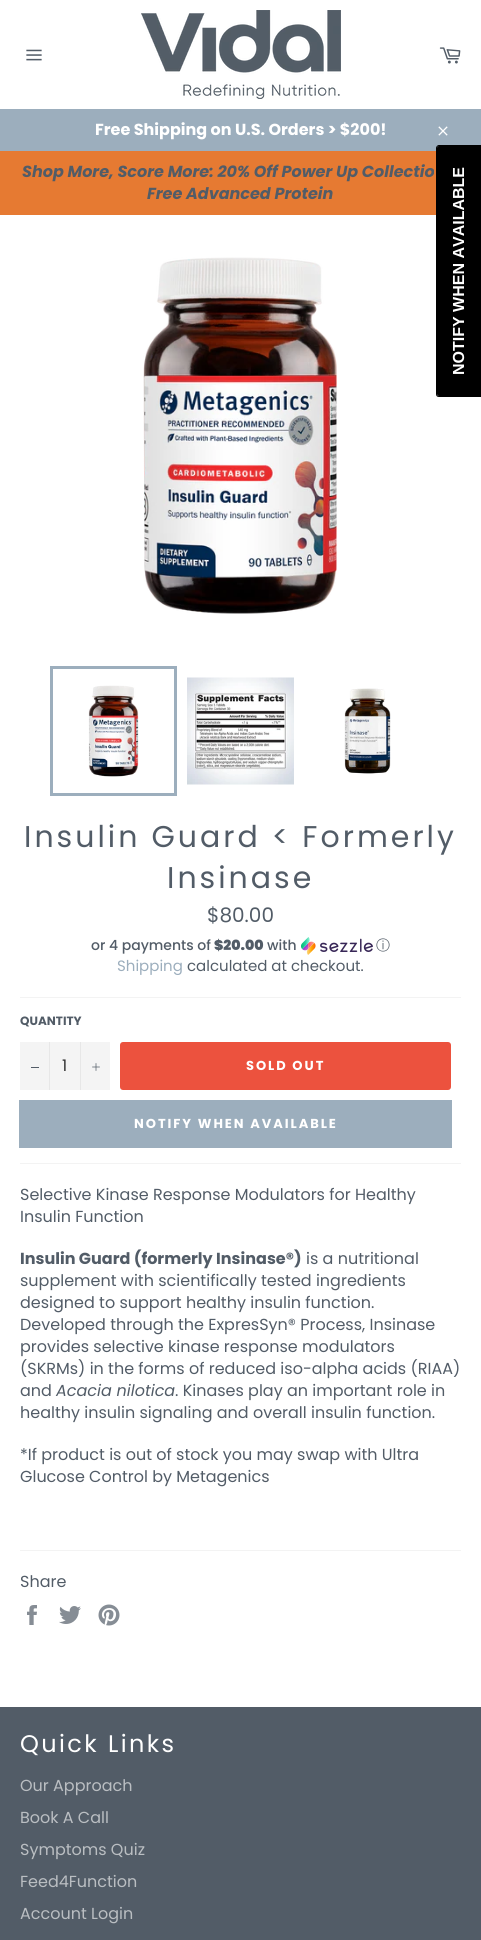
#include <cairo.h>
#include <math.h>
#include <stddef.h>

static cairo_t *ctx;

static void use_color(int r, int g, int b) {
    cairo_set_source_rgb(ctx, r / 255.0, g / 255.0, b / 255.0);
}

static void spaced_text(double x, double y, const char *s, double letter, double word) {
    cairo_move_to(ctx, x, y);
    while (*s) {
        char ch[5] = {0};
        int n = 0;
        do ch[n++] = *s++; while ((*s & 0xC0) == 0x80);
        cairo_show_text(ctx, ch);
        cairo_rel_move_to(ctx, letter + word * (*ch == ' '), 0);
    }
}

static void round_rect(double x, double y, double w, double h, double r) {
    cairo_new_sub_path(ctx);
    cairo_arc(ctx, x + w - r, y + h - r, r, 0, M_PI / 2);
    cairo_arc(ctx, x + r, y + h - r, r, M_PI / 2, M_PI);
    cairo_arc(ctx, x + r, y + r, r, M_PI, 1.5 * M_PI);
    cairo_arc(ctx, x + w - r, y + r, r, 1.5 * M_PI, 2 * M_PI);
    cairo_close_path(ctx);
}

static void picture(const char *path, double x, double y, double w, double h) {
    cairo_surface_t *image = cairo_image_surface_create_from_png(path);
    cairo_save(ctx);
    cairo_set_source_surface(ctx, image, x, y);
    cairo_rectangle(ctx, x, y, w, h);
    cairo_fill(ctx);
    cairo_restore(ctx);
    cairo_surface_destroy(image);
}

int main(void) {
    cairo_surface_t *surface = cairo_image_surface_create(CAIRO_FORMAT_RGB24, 481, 1940);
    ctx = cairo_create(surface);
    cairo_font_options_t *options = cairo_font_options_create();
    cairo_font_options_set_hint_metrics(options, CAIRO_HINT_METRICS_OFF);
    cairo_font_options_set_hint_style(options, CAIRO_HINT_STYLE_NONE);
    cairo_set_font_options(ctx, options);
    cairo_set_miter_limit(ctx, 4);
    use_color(230, 122, 50);
    cairo_paint(ctx);
    use_color(255, 255, 255);
    cairo_rectangle(ctx, 0, 0, 481, 109);
    cairo_fill(ctx);
    picture("img1.png", 26, 49, 16, 12);
    picture("img2.png", 141, 10, 200, 89);
    picture("img3.png", 439, 47, 22, 17);
    use_color(156, 174, 189);
    cairo_rectangle(ctx, 0, 109, 481, 42);
    cairo_fill(ctx);
    cairo_select_font_face(ctx, "Poppins", CAIRO_FONT_SLANT_NORMAL, CAIRO_FONT_WEIGHT_BOLD);
    cairo_set_font_size(ctx, 16);
    use_color(255, 255, 255);
    cairo_move_to(ctx, 95, 135);
    cairo_show_text(ctx, "Free Shipping on U.S. Orders > $200!");
    picture("img4.png", 438, 126, 10, 10);
    cairo_select_font_face(ctx, "Poppins", CAIRO_FONT_SLANT_ITALIC, CAIRO_FONT_WEIGHT_BOLD);
    use_color(82, 92, 103);
    cairo_move_to(ctx, 22, 177);
    cairo_show_text(ctx, "Shop More, Score More: 20% Off Power Up Collectio");
    cairo_move_to(ctx, 147, 199);
    cairo_show_text(ctx, "Free Advanced Protein");
    use_color(255, 255, 255);
    cairo_rectangle(ctx, 0, 215, 481, 1492);
    cairo_fill(ctx);
    use_color(0, 0, 0);
    cairo_new_path(ctx);
    cairo_move_to(ctx, 437, 394);
    cairo_line_to(ctx, 437, 148);
    cairo_curve_to(ctx, 437, 147, 438, 146, 439, 146);
    cairo_line_to(ctx, 481, 146);
    cairo_line_to(ctx, 481, 396);
    cairo_line_to(ctx, 439, 396);
    cairo_curve_to(ctx, 438, 396, 437, 395, 437, 394);
    cairo_close_path(ctx);
    cairo_fill(ctx);
    cairo_set_fill_rule(ctx, CAIRO_FILL_RULE_EVEN_ODD);
    cairo_new_path(ctx);
    cairo_move_to(ctx, 436, 394);
    cairo_line_to(ctx, 436, 148);
    cairo_curve_to(ctx, 436, 147, 437, 145, 439, 145);
    cairo_line_to(ctx, 481, 145);
    cairo_line_to(ctx, 481, 397);
    cairo_line_to(ctx, 439, 397);
    cairo_curve_to(ctx, 437, 397, 436, 396, 436, 394);
    cairo_close_path(ctx);
    cairo_move_to(ctx, 437, 394);
    cairo_line_to(ctx, 437, 148);
    cairo_curve_to(ctx, 437, 147, 438, 146, 439, 146);
    cairo_line_to(ctx, 481, 146);
    cairo_line_to(ctx, 481, 396);
    cairo_line_to(ctx, 439, 396);
    cairo_curve_to(ctx, 438, 396, 437, 395, 437, 394);
    cairo_close_path(ctx);
    cairo_fill(ctx);
    cairo_select_font_face(ctx, "Liberation Sans", CAIRO_FONT_SLANT_NORMAL, CAIRO_FONT_WEIGHT_BOLD);
    use_color(255, 255, 255);
    cairo_save(ctx);
    cairo_translate(ctx, 464, 375);
    cairo_rotate(ctx, -90 * M_PI / 180);
    cairo_move_to(ctx, 0, 0);
    cairo_show_text(ctx, "NOTIFY WHEN AVAILABLE");
    cairo_restore(ctx);
    picture("img5.png", 143, 257, 194, 357);
    picture("img6.png", 88, 685, 51, 92);
    cairo_rectangle(ctx, 51.5, 667.5, 124, 127);
    use_color(156, 174, 189);
    cairo_set_line_width(ctx, 3);
    cairo_stroke(ctx);
    picture("img7.png", 187, 677, 107, 108);
    picture("img8.png", 344, 688, 47, 86);
    cairo_select_font_face(ctx, "Poppins", CAIRO_FONT_SLANT_NORMAL, CAIRO_FONT_WEIGHT_NORMAL);
    cairo_set_font_size(ctx, 30);
    use_color(82, 92, 103);
    spaced_text(24, 847, "Insulin Guard < Formerly", 3, 0);
    spaced_text(167, 888, "Insinase", 3, 0);
    cairo_set_font_size(ctx, 20);
    cairo_move_to(ctx, 207, 922);
    cairo_show_text(ctx, "$80.00");
    cairo_select_font_face(ctx, "Poppins Medium", CAIRO_FONT_SLANT_NORMAL, CAIRO_FONT_WEIGHT_NORMAL);
    cairo_set_font_size(ctx, 14);
    cairo_move_to(ctx, 91, 950);
    cairo_show_text(ctx, "or 4 payments of");
    cairo_select_font_face(ctx, "Poppins Black", CAIRO_FONT_SLANT_NORMAL, CAIRO_FONT_WEIGHT_NORMAL);
    cairo_move_to(ctx, 214, 950);
    cairo_show_text(ctx, "$20.00");
    cairo_select_font_face(ctx, "Poppins Medium", CAIRO_FONT_SLANT_NORMAL, CAIRO_FONT_WEIGHT_NORMAL);
    cairo_move_to(ctx, 267, 950);
    cairo_show_text(ctx, "with");
    picture("img9.png", 301, 937, 72, 18);
    cairo_select_font_face(ctx, "WenQuanYi Zen Hei Medium", CAIRO_FONT_SLANT_NORMAL, CAIRO_FONT_WEIGHT_NORMAL);
    cairo_move_to(ctx, 376, 950);
    cairo_show_text(ctx, "ⓘ");
    cairo_select_font_face(ctx, "Poppins", CAIRO_FONT_SLANT_NORMAL, CAIRO_FONT_WEIGHT_NORMAL);
    cairo_set_font_size(ctx, 15);
    use_color(156, 174, 189);
    cairo_move_to(ctx, 117, 971);
    cairo_show_text(ctx, "Shipping");
    use_color(82, 92, 103);
    cairo_move_to(ctx, 187, 971);
    cairo_show_text(ctx, "calculated at checkout.");
    use_color(243, 243, 243);
    cairo_rectangle(ctx, 20, 997, 441, 1);
    cairo_fill(ctx);
    cairo_select_font_face(ctx, "Poppins", CAIRO_FONT_SLANT_NORMAL, CAIRO_FONT_WEIGHT_BOLD);
    cairo_set_font_size(ctx, 12);
    use_color(82, 92, 103);
    cairo_move_to(ctx, 20, 1025);
    cairo_show_text(ctx, "QUANTITY");
    use_color(244, 244, 244);
    cairo_rectangle(ctx, 20, 1042, 90, 48);
    cairo_fill(ctx);
    use_color(231, 231, 231);
    cairo_rectangle(ctx, 49, 1042, 1, 48);
    cairo_fill(ctx);
    use_color(82, 92, 103);
    cairo_rectangle(ctx, 31, 1067, 8, 1);
    cairo_fill(ctx);
    cairo_select_font_face(ctx, "Poppins", CAIRO_FONT_SLANT_NORMAL, CAIRO_FONT_WEIGHT_NORMAL);
    cairo_set_font_size(ctx, 16);
    use_color(51, 51, 51);
    cairo_move_to(ctx, 62, 1071);
    cairo_show_text(ctx, "1");
    use_color(231, 231, 231);
    cairo_rectangle(ctx, 80, 1042, 1, 48);
    cairo_fill(ctx);
    picture("img10.png", 92, 1063, 8, 8);
    use_color(236, 82, 62);
    round_rect(120, 1042, 331, 48, 3);
    cairo_fill(ctx);
    cairo_select_font_face(ctx, "Poppins", CAIRO_FONT_SLANT_NORMAL, CAIRO_FONT_WEIGHT_BOLD);
    cairo_set_font_size(ctx, 13);
    use_color(255, 255, 255);
    spaced_text(246, 1070, "SOLD OUT", 1.95, 0);
    use_color(156, 174, 189);
    cairo_rectangle(ctx, 19, 1100, 433, 48);
    cairo_fill(ctx);
    use_color(255, 255, 255);
    spaced_text(134, 1128, "NOTIFY WHEN AVAILABLE", 1.95, 0);
    use_color(243, 243, 243);
    cairo_rectangle(ctx, 20, 1163, 441, 1);
    cairo_fill(ctx);
    cairo_select_font_face(ctx, "Poppins", CAIRO_FONT_SLANT_NORMAL, CAIRO_FONT_WEIGHT_NORMAL);
    cairo_set_font_size(ctx, 16);
    use_color(82, 92, 103);
    cairo_move_to(ctx, 20, 1200);
    cairo_show_text(ctx, "Selective Kinase Response Modulators for Healthy");
    cairo_move_to(ctx, 20, 1222);
    cairo_show_text(ctx, "Insulin Function");
    cairo_select_font_face(ctx, "Poppins", CAIRO_FONT_SLANT_NORMAL, CAIRO_FONT_WEIGHT_BOLD);
    cairo_move_to(ctx, 20, 1264);
    cairo_show_text(ctx, "Insulin Guard (formerly Insinase®)");
    cairo_select_font_face(ctx, "Poppins", CAIRO_FONT_SLANT_NORMAL, CAIRO_FONT_WEIGHT_NORMAL);
    cairo_move_to(ctx, 306, 1264);
    cairo_show_text(ctx, "is a nutritional");
    cairo_move_to(ctx, 20, 1286);
    cairo_show_text(ctx, "supplement with scientifically tested ingredients");
    cairo_move_to(ctx, 20, 1308);
    cairo_show_text(ctx, "designed to support healthy insulin function.");
    cairo_move_to(ctx, 20, 1330);
    cairo_show_text(ctx, "Developed through the ExpresSyn® Process, Insinase");
    cairo_move_to(ctx, 20, 1352);
    cairo_show_text(ctx, "provides selective kinase response modulators");
    cairo_move_to(ctx, 20, 1374);
    cairo_show_text(ctx, "(SKRMs) in the forms of reduced iso-alpha acids (RIAA)");
    cairo_move_to(ctx, 20, 1396);
    cairo_show_text(ctx, "and");
    cairo_select_font_face(ctx, "Poppins", CAIRO_FONT_SLANT_ITALIC, CAIRO_FONT_WEIGHT_NORMAL);
    cairo_move_to(ctx, 56, 1396);
    cairo_show_text(ctx, "Acacia nilotica");
    cairo_select_font_face(ctx, "Poppins", CAIRO_FONT_SLANT_NORMAL, CAIRO_FONT_WEIGHT_NORMAL);
    cairo_move_to(ctx, 175, 1396);
    cairo_show_text(ctx, ". Kinases play an important role in");
    cairo_move_to(ctx, 20, 1418);
    cairo_show_text(ctx, "healthy insulin signaling and overall insulin function.");
    cairo_move_to(ctx, 20, 1460);
    cairo_show_text(ctx, "*If product is out of stock you may swap with Ultra");
    cairo_move_to(ctx, 20, 1482);
    cairo_show_text(ctx, "Glucose Control by Metagenics");
    use_color(243, 243, 243);
    cairo_rectangle(ctx, 20, 1550, 441, 1);
    cairo_fill(ctx);
    use_color(82, 92, 103);
    cairo_move_to(ctx, 20, 1587);
    cairo_show_text(ctx, "Share");
    picture("img11.png", 27, 1605, 10, 20);
    picture("img12.png", 59, 1606, 22, 18);
    picture("img13.png", 98, 1604, 22, 22);
    cairo_rectangle(ctx, 0, 1707, 481, 233);
    cairo_fill(ctx);
    cairo_set_font_size(ctx, 24);
    use_color(255, 255, 255);
    spaced_text(20, 1752, "Quick Links", 2.4, 0);
    cairo_set_font_size(ctx, 16);
    use_color(186, 190, 194);
    cairo_move_to(ctx, 20, 1791);
    cairo_show_text(ctx, "Our Approach");
    cairo_move_to(ctx, 20, 1823);
    cairo_show_text(ctx, "Book A Call");
    cairo_move_to(ctx, 20, 1855);
    cairo_show_text(ctx, "Symptoms Quiz");
    cairo_move_to(ctx, 20, 1887);
    cairo_show_text(ctx, "Feed4Function");
    cairo_move_to(ctx, 20, 1919);
    cairo_show_text(ctx, "Account Login");
    cairo_surface_write_to_png(surface, "result.png");
    cairo_font_options_destroy(options);
    cairo_destroy(ctx);
    cairo_surface_destroy(surface);
    return 0;
}
